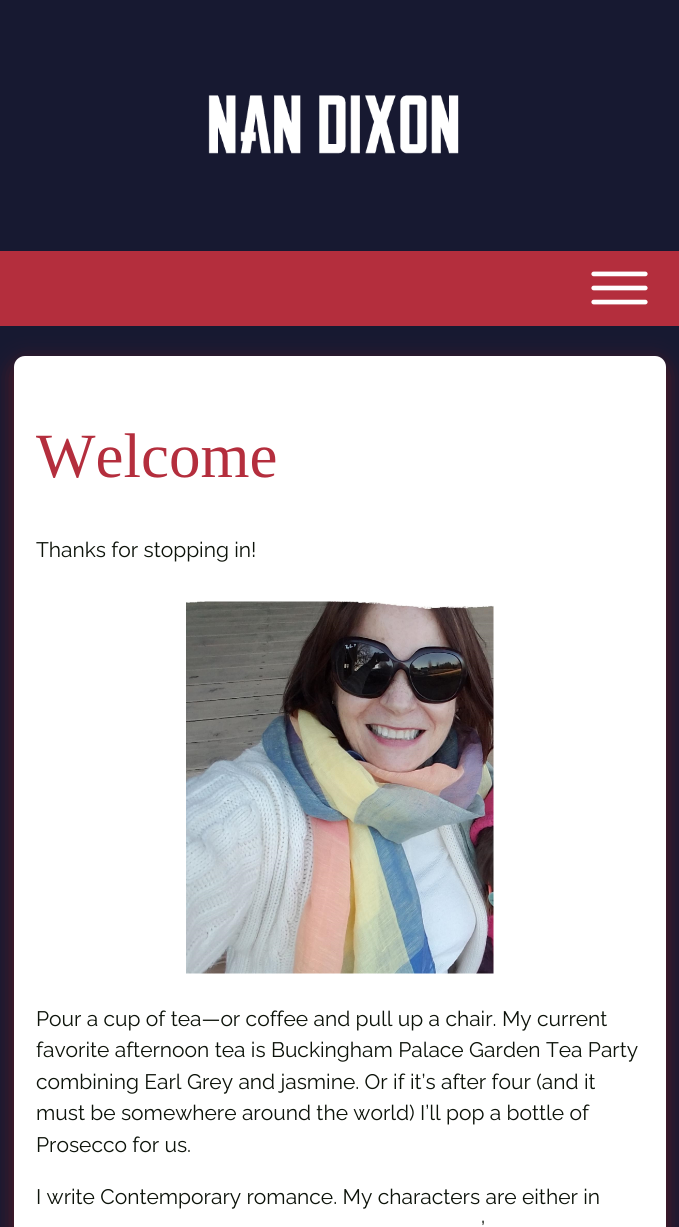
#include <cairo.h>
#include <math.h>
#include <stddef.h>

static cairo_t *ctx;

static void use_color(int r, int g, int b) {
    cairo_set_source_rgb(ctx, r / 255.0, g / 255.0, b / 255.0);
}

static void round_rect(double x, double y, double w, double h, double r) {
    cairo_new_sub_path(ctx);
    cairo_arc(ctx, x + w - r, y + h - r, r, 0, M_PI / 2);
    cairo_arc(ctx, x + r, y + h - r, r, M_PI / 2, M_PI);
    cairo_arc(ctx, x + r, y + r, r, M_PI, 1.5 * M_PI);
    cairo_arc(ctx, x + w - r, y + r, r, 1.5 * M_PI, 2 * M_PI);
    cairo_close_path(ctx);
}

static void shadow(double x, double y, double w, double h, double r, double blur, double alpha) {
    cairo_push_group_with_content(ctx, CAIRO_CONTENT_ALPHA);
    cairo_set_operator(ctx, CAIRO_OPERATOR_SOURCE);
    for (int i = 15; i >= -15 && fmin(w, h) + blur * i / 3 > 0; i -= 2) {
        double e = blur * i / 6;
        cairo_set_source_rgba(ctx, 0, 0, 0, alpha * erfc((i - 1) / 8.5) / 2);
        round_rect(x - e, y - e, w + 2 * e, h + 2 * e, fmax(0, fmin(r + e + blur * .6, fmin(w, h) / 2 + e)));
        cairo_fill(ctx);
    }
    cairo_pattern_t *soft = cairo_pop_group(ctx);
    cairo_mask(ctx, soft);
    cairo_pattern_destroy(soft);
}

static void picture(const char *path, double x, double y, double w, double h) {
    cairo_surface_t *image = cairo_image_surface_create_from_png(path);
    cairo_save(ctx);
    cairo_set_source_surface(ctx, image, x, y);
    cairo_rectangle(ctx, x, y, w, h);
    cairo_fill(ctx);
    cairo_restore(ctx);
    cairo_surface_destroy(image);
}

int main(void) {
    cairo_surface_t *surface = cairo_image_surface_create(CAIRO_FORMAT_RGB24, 679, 1227);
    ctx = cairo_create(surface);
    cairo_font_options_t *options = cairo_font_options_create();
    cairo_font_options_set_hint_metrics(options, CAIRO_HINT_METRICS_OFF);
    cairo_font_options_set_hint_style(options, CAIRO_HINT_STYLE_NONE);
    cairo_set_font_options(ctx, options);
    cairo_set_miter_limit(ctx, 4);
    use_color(23, 25, 49);
    cairo_paint(ctx);
    picture("img1.png", 208, 95, 251, 59);
    use_color(180, 46, 61);
    cairo_rectangle(ctx, 0, 251, 679, 75);
    cairo_fill(ctx);
    picture("img2.png", 591, 271, 57, 34);
    use_color(93, 24, 32);
    shadow(14, 363, 652, 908, 11, 11, 1);
    use_color(255, 255, 255);
    round_rect(14, 356, 652, 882, 11);
    cairo_fill(ctx);
    cairo_select_font_face(ctx, "Liberation Serif", CAIRO_FONT_SLANT_NORMAL, CAIRO_FONT_WEIGHT_NORMAL);
    cairo_set_font_size(ctx, 63);
    use_color(180, 46, 61);
    cairo_move_to(ctx, 36, 477);
    cairo_show_text(ctx, "Welcome");
    cairo_select_font_face(ctx, "Raleway Thin", CAIRO_FONT_SLANT_NORMAL, CAIRO_FONT_WEIGHT_NORMAL);
    cairo_set_font_size(ctx, 21);
    use_color(13, 19, 10);
    cairo_move_to(ctx, 36, 557);
    cairo_show_text(ctx, "Thanks for stopping in!");
    picture("img3.png", 186, 601, 308, 373);
    cairo_move_to(ctx, 36, 1026);
    cairo_show_text(ctx, "Pour a cup of tea—or coffee and pull up a chair. My current");
    cairo_move_to(ctx, 36, 1057);
    cairo_show_text(ctx, "favorite afternoon tea is Buckingham Palace Garden Tea Party");
    cairo_move_to(ctx, 36, 1089);
    cairo_show_text(ctx, "combining Earl Grey and jasmine. Or if it’s after four (and it");
    cairo_move_to(ctx, 36, 1120);
    cairo_show_text(ctx, "must be somewhere around the world) I’ll pop a bottle of");
    cairo_move_to(ctx, 36, 1152);
    cairo_show_text(ctx, "Prosecco for us.");
    cairo_move_to(ctx, 36, 1204);
    cairo_show_text(ctx, "I write Contemporary romance. My characters are either in");
    cairo_move_to(ctx, 481, 1236);
    cairo_show_text(ctx, "’");
    cairo_surface_write_to_png(surface, "result.png");
    cairo_font_options_destroy(options);
    cairo_destroy(ctx);
    cairo_surface_destroy(surface);
    return 0;
}
